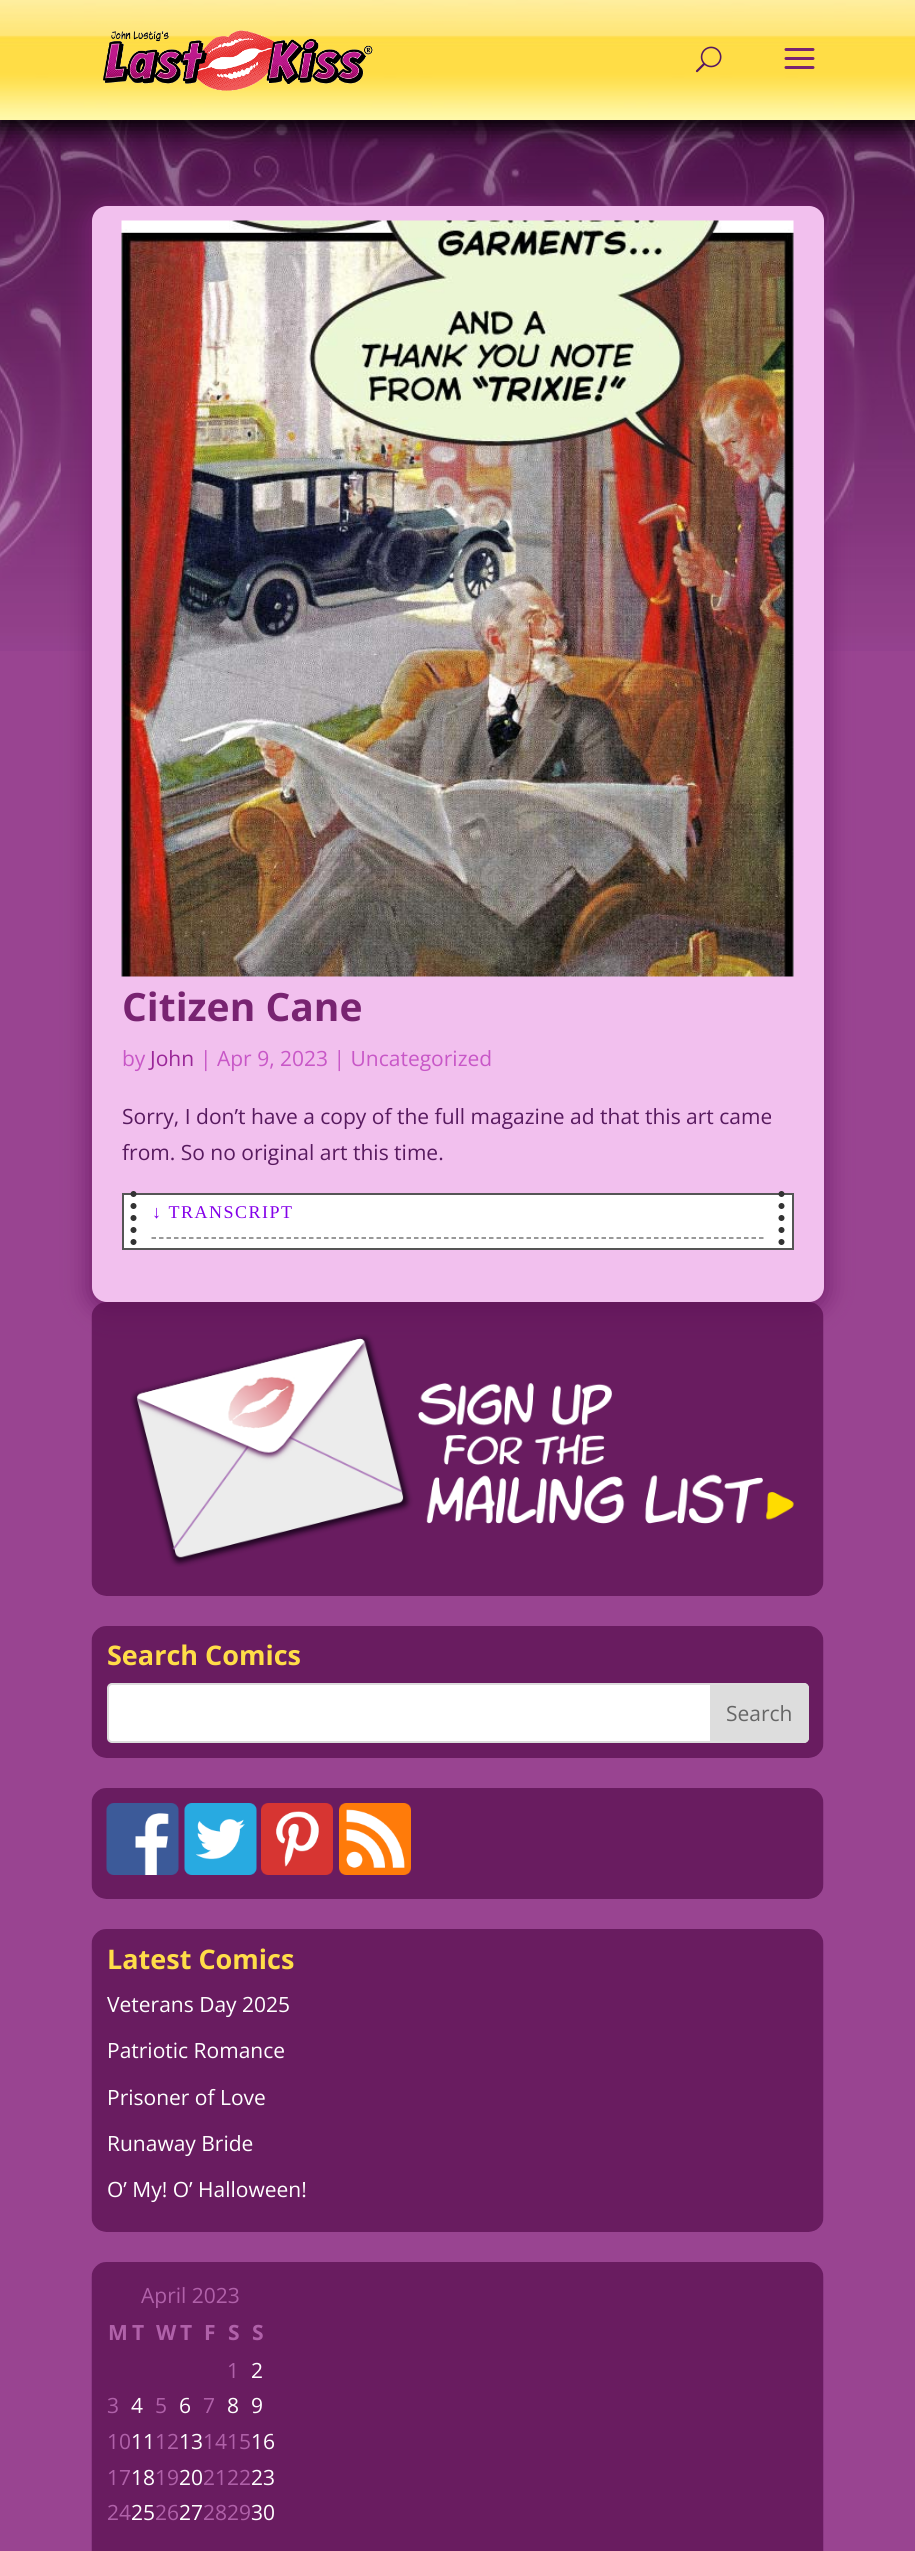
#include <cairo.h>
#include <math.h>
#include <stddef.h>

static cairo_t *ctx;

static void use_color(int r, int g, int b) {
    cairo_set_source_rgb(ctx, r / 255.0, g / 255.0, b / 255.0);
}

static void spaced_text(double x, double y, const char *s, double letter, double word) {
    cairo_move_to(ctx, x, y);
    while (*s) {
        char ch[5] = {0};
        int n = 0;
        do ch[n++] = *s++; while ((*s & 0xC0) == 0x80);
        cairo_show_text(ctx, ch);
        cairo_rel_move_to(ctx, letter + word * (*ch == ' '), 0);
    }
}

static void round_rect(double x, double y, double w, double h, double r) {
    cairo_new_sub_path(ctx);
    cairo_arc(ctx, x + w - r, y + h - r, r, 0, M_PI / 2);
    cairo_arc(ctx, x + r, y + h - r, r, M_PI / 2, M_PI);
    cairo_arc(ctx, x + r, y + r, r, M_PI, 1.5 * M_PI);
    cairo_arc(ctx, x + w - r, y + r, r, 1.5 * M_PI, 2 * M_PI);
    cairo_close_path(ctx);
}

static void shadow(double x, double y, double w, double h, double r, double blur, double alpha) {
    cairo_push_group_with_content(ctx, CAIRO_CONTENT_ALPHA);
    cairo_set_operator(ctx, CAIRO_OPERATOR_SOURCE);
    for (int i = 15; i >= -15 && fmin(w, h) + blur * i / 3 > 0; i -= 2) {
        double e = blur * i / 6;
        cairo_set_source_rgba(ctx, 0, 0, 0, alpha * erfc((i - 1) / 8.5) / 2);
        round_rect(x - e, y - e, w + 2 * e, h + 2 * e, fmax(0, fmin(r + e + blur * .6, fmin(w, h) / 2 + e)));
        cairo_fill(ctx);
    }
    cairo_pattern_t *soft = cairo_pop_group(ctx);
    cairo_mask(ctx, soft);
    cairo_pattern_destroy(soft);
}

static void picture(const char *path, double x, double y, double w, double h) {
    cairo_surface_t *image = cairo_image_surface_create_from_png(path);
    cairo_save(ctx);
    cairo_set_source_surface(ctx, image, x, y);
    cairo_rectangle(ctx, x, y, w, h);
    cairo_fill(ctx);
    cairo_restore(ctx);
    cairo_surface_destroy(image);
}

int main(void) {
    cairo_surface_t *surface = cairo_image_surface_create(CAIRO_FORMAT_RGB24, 915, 2551);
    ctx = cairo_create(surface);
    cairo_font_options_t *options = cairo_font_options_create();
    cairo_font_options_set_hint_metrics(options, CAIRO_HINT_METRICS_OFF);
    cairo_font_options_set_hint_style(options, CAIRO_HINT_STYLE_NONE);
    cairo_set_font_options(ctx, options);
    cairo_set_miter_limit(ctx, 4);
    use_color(153, 68, 145);
    cairo_paint(ctx);
    picture("img5.png", 0, 120, 915, 531);
    use_color(0, 0, 0);
    shadow(-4, 0, 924, 129, 0, 11, 1);
    picture("img1.png", 0, 0, 915, 120);
    picture("img2.png", 103, 30, 270, 61);
    picture("img3.png", 695, 46, 27, 27);
    picture("img4.png", 784, 48, 31, 21);
    use_color(120, 35, 113);
    shadow(87, 206, 741, 1105, 20, 11, 1);
    use_color(242, 192, 238);
    round_rect(92, 206, 732, 1096, 15);
    cairo_fill(ctx);
    picture("img6.png", 121, 220, 673, 757);
    cairo_select_font_face(ctx, "Open Sans", CAIRO_FONT_SLANT_NORMAL, CAIRO_FONT_WEIGHT_BOLD);
    cairo_set_font_size(ctx, 39);
    use_color(120, 35, 113);
    cairo_move_to(ctx, 122, 1021);
    cairo_show_text(ctx, "Citizen Cane");
    cairo_select_font_face(ctx, "Open Sans", CAIRO_FONT_SLANT_NORMAL, CAIRO_FONT_WEIGHT_NORMAL);
    cairo_set_font_size(ctx, 21);
    use_color(200, 87, 199);
    cairo_move_to(ctx, 122, 1066);
    cairo_show_text(ctx, "by");
    use_color(154, 38, 152);
    cairo_move_to(ctx, 150, 1066);
    cairo_show_text(ctx, "John");
    use_color(200, 87, 199);
    cairo_move_to(ctx, 200, 1066);
    cairo_show_text(ctx, "| Apr 9, 2023 | Uncategorized");
    use_color(88, 26, 95);
    cairo_move_to(ctx, 122, 1124);
    cairo_show_text(ctx, "Sorry, I don’t have a copy of the full magazine ad that this art came");
    cairo_move_to(ctx, 122, 1160);
    cairo_show_text(ctx, "from. So no original art this time.");
    use_color(255, 255, 255);
    cairo_rectangle(ctx, 123, 1194, 670, 55);
    cairo_fill_preserve(ctx);
    use_color(85, 85, 85);
    cairo_stroke(ctx);
    cairo_new_path(ctx);
    cairo_move_to(ctx, 781.5, 1194);
    cairo_line_to(ctx, 781.5, 1248);
    use_color(51, 51, 51);
    cairo_set_line_width(ctx, 6);
    cairo_set_line_cap(ctx, CAIRO_LINE_CAP_ROUND);
    cairo_set_dash(ctx, (double[]){0, 12}, 2, 0);
    cairo_stroke(ctx);
    cairo_new_path(ctx);
    cairo_move_to(ctx, 133.5, 1194);
    cairo_line_to(ctx, 133.5, 1248);
    cairo_stroke(ctx);
    cairo_new_path(ctx);
    cairo_move_to(ctx, 151.5, 1238);
    cairo_line_to(ctx, 763.5, 1238);
    use_color(119, 119, 119);
    cairo_set_line_width(ctx, 1.5);
    cairo_set_line_cap(ctx, CAIRO_LINE_CAP_BUTT);
    cairo_set_dash(ctx, (double[]){4.5, 3}, 2, 0);
    cairo_stroke(ctx);
    cairo_select_font_face(ctx, "Liberation Serif", CAIRO_FONT_SLANT_NORMAL, CAIRO_FONT_WEIGHT_NORMAL);
    cairo_set_font_size(ctx, 18);
    use_color(131, 0, 233);
    spaced_text(152, 1218, "↓ TRANSCRIPT", 1.5, 0);
    picture("img7.png", 91, 1302, 733, 294);
    picture("img8.png", 130, 1334, 664, 233);
    picture("img9.png", 91, 1626, 733, 132);
    cairo_select_font_face(ctx, "Open Sans", CAIRO_FONT_SLANT_NORMAL, CAIRO_FONT_WEIGHT_BOLD);
    cairo_set_font_size(ctx, 27);
    use_color(255, 221, 72);
    cairo_move_to(ctx, 107, 1665);
    cairo_show_text(ctx, "Search Comics");
    use_color(255, 255, 255);
    round_rect(108, 1684, 700, 58, 4);
    cairo_fill_preserve(ctx);
    use_color(221, 221, 221);
    cairo_set_line_width(ctx, 2);
    cairo_set_dash(ctx, NULL, 0, 0);
    cairo_stroke(ctx);
    cairo_new_path(ctx);
    cairo_move_to(ctx, 711, 1684);
    cairo_line_to(ctx, 804, 1684);
    cairo_curve_to(ctx, 806, 1684, 808, 1686, 808, 1688);
    cairo_line_to(ctx, 808, 1738);
    cairo_curve_to(ctx, 808, 1740, 806, 1742, 804, 1742);
    cairo_line_to(ctx, 711, 1742);
    cairo_close_path(ctx);
    cairo_fill_preserve(ctx);
    cairo_stroke(ctx);
    cairo_select_font_face(ctx, "Open Sans", CAIRO_FONT_SLANT_NORMAL, CAIRO_FONT_WEIGHT_NORMAL);
    cairo_set_font_size(ctx, 21);
    use_color(102, 102, 102);
    cairo_move_to(ctx, 726, 1721);
    cairo_show_text(ctx, "Search");
    picture("img10.png", 91, 1788, 733, 111);
    picture("img11.png", 106, 1803, 73, 72);
    picture("img12.png", 184, 1803, 73, 72);
    picture("img13.png", 261, 1803, 72, 72);
    picture("img14.png", 339, 1803, 72, 72);
    picture("img15.png", 91, 1929, 733, 303);
    cairo_select_font_face(ctx, "Open Sans", CAIRO_FONT_SLANT_NORMAL, CAIRO_FONT_WEIGHT_BOLD);
    cairo_set_font_size(ctx, 27);
    use_color(255, 221, 72);
    cairo_move_to(ctx, 107, 1969);
    cairo_show_text(ctx, "Latest Comics");
    cairo_select_font_face(ctx, "Open Sans", CAIRO_FONT_SLANT_NORMAL, CAIRO_FONT_WEIGHT_NORMAL);
    cairo_set_font_size(ctx, 21);
    use_color(255, 255, 255);
    cairo_move_to(ctx, 107, 2012);
    cairo_show_text(ctx, "Veterans Day 2025");
    cairo_move_to(ctx, 107, 2058);
    cairo_show_text(ctx, "Patriotic Romance");
    cairo_move_to(ctx, 107, 2105);
    cairo_show_text(ctx, "Prisoner of Love");
    cairo_move_to(ctx, 107, 2151);
    cairo_show_text(ctx, "Runaway Bride");
    cairo_move_to(ctx, 107, 2197);
    cairo_show_text(ctx, "O’ My! O’ Halloween!");
    picture("img16.png", 91, 2262, 733, 289);
    use_color(176, 97, 169);
    cairo_move_to(ctx, 141, 2303);
    cairo_show_text(ctx, "April 2023");
    cairo_select_font_face(ctx, "Open Sans", CAIRO_FONT_SLANT_NORMAL, CAIRO_FONT_WEIGHT_BOLD);
    cairo_move_to(ctx, 108, 2340);
    cairo_show_text(ctx, "M");
    cairo_move_to(ctx, 132, 2340);
    cairo_show_text(ctx, "T");
    cairo_move_to(ctx, 156, 2340);
    cairo_show_text(ctx, "W");
    cairo_move_to(ctx, 180, 2340);
    cairo_show_text(ctx, "T");
    cairo_move_to(ctx, 204, 2340);
    cairo_show_text(ctx, "F");
    cairo_move_to(ctx, 228, 2340);
    cairo_show_text(ctx, "S");
    cairo_move_to(ctx, 252, 2340);
    cairo_show_text(ctx, "S");
    cairo_select_font_face(ctx, "Open Sans", CAIRO_FONT_SLANT_NORMAL, CAIRO_FONT_WEIGHT_NORMAL);
    cairo_move_to(ctx, 227, 2378);
    cairo_show_text(ctx, "1");
    use_color(255, 255, 255);
    cairo_move_to(ctx, 251, 2378);
    cairo_show_text(ctx, "2");
    use_color(176, 97, 169);
    cairo_move_to(ctx, 107, 2413);
    cairo_show_text(ctx, "3");
    use_color(255, 255, 255);
    cairo_move_to(ctx, 131, 2413);
    cairo_show_text(ctx, "4");
    use_color(176, 97, 169);
    cairo_move_to(ctx, 155, 2413);
    cairo_show_text(ctx, "5");
    use_color(255, 255, 255);
    cairo_move_to(ctx, 179, 2413);
    cairo_show_text(ctx, "6");
    use_color(176, 97, 169);
    cairo_move_to(ctx, 203, 2413);
    cairo_show_text(ctx, "7");
    use_color(255, 255, 255);
    cairo_move_to(ctx, 227, 2413);
    cairo_show_text(ctx, "8");
    cairo_move_to(ctx, 251, 2413);
    cairo_show_text(ctx, "9");
    use_color(176, 97, 169);
    cairo_move_to(ctx, 107, 2449);
    cairo_show_text(ctx, "10");
    use_color(255, 255, 255);
    cairo_move_to(ctx, 131, 2449);
    cairo_show_text(ctx, "11");
    use_color(176, 97, 169);
    cairo_move_to(ctx, 155, 2449);
    cairo_show_text(ctx, "12");
    use_color(255, 255, 255);
    cairo_move_to(ctx, 179, 2449);
    cairo_show_text(ctx, "13");
    use_color(176, 97, 169);
    cairo_move_to(ctx, 203, 2449);
    cairo_show_text(ctx, "1415");
    use_color(255, 255, 255);
    cairo_move_to(ctx, 251, 2449);
    cairo_show_text(ctx, "16");
    use_color(176, 97, 169);
    cairo_move_to(ctx, 107, 2485);
    cairo_show_text(ctx, "17");
    use_color(255, 255, 255);
    cairo_move_to(ctx, 131, 2485);
    cairo_show_text(ctx, "18");
    use_color(176, 97, 169);
    cairo_move_to(ctx, 155, 2485);
    cairo_show_text(ctx, "19");
    use_color(255, 255, 255);
    cairo_move_to(ctx, 179, 2485);
    cairo_show_text(ctx, "20");
    use_color(176, 97, 169);
    cairo_move_to(ctx, 203, 2485);
    cairo_show_text(ctx, "2122");
    use_color(255, 255, 255);
    cairo_move_to(ctx, 251, 2485);
    cairo_show_text(ctx, "23");
    use_color(176, 97, 169);
    cairo_move_to(ctx, 107, 2520);
    cairo_show_text(ctx, "24");
    use_color(255, 255, 255);
    cairo_move_to(ctx, 131, 2520);
    cairo_show_text(ctx, "25");
    use_color(176, 97, 169);
    cairo_move_to(ctx, 155, 2520);
    cairo_show_text(ctx, "26");
    use_color(255, 255, 255);
    cairo_move_to(ctx, 179, 2520);
    cairo_show_text(ctx, "27");
    use_color(176, 97, 169);
    cairo_move_to(ctx, 203, 2520);
    cairo_show_text(ctx, "2829");
    use_color(255, 255, 255);
    cairo_move_to(ctx, 251, 2520);
    cairo_show_text(ctx, "30");
    cairo_surface_write_to_png(surface, "result.png");
    cairo_font_options_destroy(options);
    cairo_destroy(ctx);
    cairo_surface_destroy(surface);
    return 0;
}
